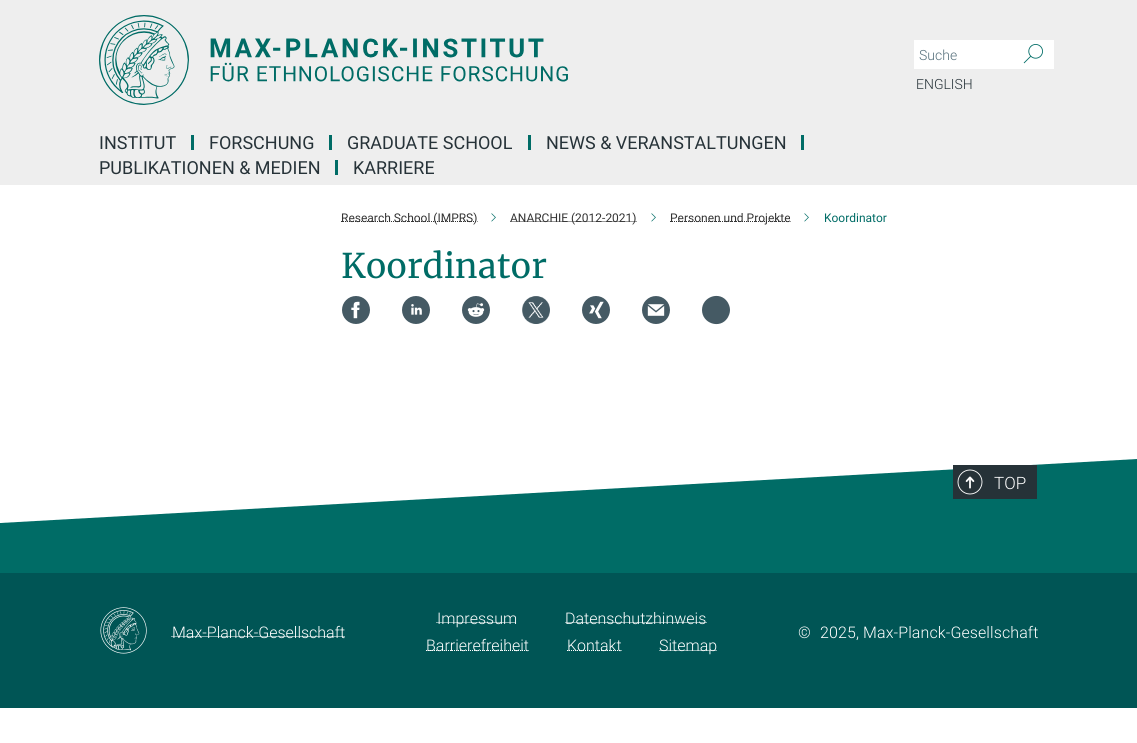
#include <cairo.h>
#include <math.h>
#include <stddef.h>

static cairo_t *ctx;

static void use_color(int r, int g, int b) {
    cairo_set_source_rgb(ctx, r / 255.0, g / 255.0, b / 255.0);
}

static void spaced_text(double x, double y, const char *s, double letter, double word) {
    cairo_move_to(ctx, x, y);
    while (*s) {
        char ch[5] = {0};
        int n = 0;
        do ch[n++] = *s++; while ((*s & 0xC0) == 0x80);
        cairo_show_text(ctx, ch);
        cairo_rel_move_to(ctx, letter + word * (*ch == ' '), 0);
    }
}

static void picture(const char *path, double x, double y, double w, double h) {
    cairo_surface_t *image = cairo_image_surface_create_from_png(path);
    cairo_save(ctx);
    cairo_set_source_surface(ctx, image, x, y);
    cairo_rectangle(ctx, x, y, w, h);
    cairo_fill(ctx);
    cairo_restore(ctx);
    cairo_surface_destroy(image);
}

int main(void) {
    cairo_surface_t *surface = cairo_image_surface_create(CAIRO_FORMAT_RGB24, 1137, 743);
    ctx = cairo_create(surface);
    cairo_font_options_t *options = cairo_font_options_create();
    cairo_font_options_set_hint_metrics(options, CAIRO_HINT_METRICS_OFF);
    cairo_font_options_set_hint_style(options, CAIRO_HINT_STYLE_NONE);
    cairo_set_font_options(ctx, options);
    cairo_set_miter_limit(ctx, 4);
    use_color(255, 255, 255);
    cairo_paint(ctx);
    use_color(238, 238, 238);
    cairo_rectangle(ctx, 0, 0, 1137, 185);
    cairo_fill(ctx);
    picture("img1.png", 99, 15, 469, 90);
    use_color(255, 255, 255);
    cairo_rectangle(ctx, 914, 40, 140, 29);
    cairo_fill(ctx);
    cairo_select_font_face(ctx, "Roboto Light", CAIRO_FONT_SLANT_NORMAL, CAIRO_FONT_WEIGHT_NORMAL);
    cairo_set_font_size(ctx, 14);
    use_color(84, 110, 122);
    cairo_move_to(ctx, 919, 60);
    cairo_show_text(ctx, "Suche");
    picture("img2.png", 1023, 44, 20, 20);
    use_color(38, 50, 56);
    cairo_move_to(ctx, 916, 89);
    cairo_show_text(ctx, "ENGLISH");
    use_color(0, 108, 102);
    cairo_rectangle(ctx, 191, 135, 3, 15);
    cairo_fill(ctx);
    cairo_select_font_face(ctx, "Roboto", CAIRO_FONT_SLANT_NORMAL, CAIRO_FONT_WEIGHT_NORMAL);
    cairo_set_font_size(ctx, 18);
    use_color(38, 50, 56);
    cairo_move_to(ctx, 99, 149);
    cairo_show_text(ctx, "INSTITUT");
    use_color(0, 108, 102);
    cairo_rectangle(ctx, 329, 135, 3, 15);
    cairo_fill(ctx);
    use_color(38, 50, 56);
    cairo_move_to(ctx, 209, 149);
    cairo_show_text(ctx, "FORSCHUNG");
    use_color(0, 108, 102);
    cairo_rectangle(ctx, 528, 135, 3, 15);
    cairo_fill(ctx);
    use_color(38, 50, 56);
    cairo_move_to(ctx, 347, 149);
    cairo_show_text(ctx, "GRADUATE SCHOOL");
    use_color(0, 108, 102);
    cairo_rectangle(ctx, 801, 135, 3, 15);
    cairo_fill(ctx);
    use_color(38, 50, 56);
    cairo_move_to(ctx, 546, 149);
    cairo_show_text(ctx, "NEWS & VERANSTALTUNGEN");
    use_color(0, 108, 102);
    cairo_rectangle(ctx, 335, 160, 3, 15);
    cairo_fill(ctx);
    use_color(38, 50, 56);
    cairo_move_to(ctx, 99, 174);
    cairo_show_text(ctx, "PUBLIKATIONEN & MEDIEN");
    cairo_move_to(ctx, 353, 174);
    cairo_show_text(ctx, "KARRIERE");
    cairo_new_path(ctx);
    cairo_move_to(ctx, 341, 221.5);
    cairo_line_to(ctx, 477.5, 221.5);
    use_color(51, 51, 51);
    cairo_set_line_width(ctx, 1);
    cairo_set_dash(ctx, (double[]){1, 1}, 2, 0);
    cairo_stroke(ctx);
    cairo_set_font_size(ctx, 12);
    cairo_move_to(ctx, 341, 222);
    cairo_show_text(ctx, "Research School (IMPRS)");
    picture("img3.png", 491, 213, 5, 9);
    cairo_new_path(ctx);
    cairo_move_to(ctx, 510.5, 221.5);
    cairo_line_to(ctx, 637, 221.5);
    cairo_stroke(ctx);
    cairo_move_to(ctx, 510, 222);
    cairo_show_text(ctx, "ANARCHIE (2012-2021)");
    picture("img3.png", 651, 213, 5, 9);
    cairo_new_path(ctx);
    cairo_move_to(ctx, 670, 221.5);
    cairo_line_to(ctx, 790.5, 221.5);
    cairo_stroke(ctx);
    cairo_move_to(ctx, 670, 222);
    cairo_show_text(ctx, "Personen und Projekte");
    picture("img3.png", 804, 213, 5, 9);
    use_color(0, 108, 102);
    cairo_move_to(ctx, 824, 222);
    cairo_show_text(ctx, "Koordinator");
    cairo_select_font_face(ctx, "Merriweather", CAIRO_FONT_SLANT_NORMAL, CAIRO_FONT_WEIGHT_NORMAL);
    cairo_set_font_size(ctx, 34);
    cairo_move_to(ctx, 341, 278);
    cairo_show_text(ctx, "Koordinator");
    picture("img4.png", 342, 296, 28, 28);
    picture("img5.png", 402, 296, 28, 28);
    picture("img6.png", 462, 296, 28, 28);
    picture("img7.png", 522, 296, 28, 28);
    picture("img8.png", 582, 296, 28, 28);
    picture("img9.png", 642, 296, 28, 28);
    use_color(69, 90, 100);
    cairo_new_path(ctx);
    cairo_move_to(ctx, 730, 310);
    cairo_curve_to(ctx, 730, 313, 729, 315.5, 727.5, 318);
    cairo_curve_to(ctx, 720, 329.5, 702, 323.5, 702, 310);
    cairo_curve_to(ctx, 702, 296.5, 720, 290.5, 727.5, 302);
    cairo_curve_to(ctx, 729, 304.5, 730, 307, 730, 310);
    cairo_close_path(ctx);
    cairo_fill(ctx);
    use_color(0, 108, 102);
    cairo_rectangle(ctx, 0, 529, 1137, 44);
    cairo_fill(ctx);
    cairo_new_path(ctx);
    cairo_move_to(ctx, 0, 523);
    cairo_line_to(ctx, 1137, 459);
    cairo_line_to(ctx, 1137, 529);
    cairo_line_to(ctx, 0, 529);
    cairo_fill(ctx);
    use_color(38, 50, 56);
    cairo_rectangle(ctx, 953, 465, 84, 34);
    cairo_fill(ctx);
    picture("img10.png", 965, 476, 10, 13);
    picture("img11.png", 957, 469, 26, 26);
    cairo_select_font_face(ctx, "Roboto Light", CAIRO_FONT_SLANT_NORMAL, CAIRO_FONT_WEIGHT_NORMAL);
    cairo_set_font_size(ctx, 17);
    use_color(255, 255, 255);
    cairo_move_to(ctx, 994, 489);
    cairo_show_text(ctx, "TOP");
    use_color(0, 85, 85);
    cairo_rectangle(ctx, 0, 573, 1137, 135);
    cairo_fill(ctx);
    picture("img12.png", 100, 607, 47, 47);
    cairo_new_path(ctx);
    cairo_move_to(ctx, 171.5, 636.5);
    cairo_line_to(ctx, 345, 636.5);
    use_color(255, 255, 255);
    cairo_stroke(ctx);
    cairo_set_font_size(ctx, 16);
    cairo_move_to(ctx, 172, 638);
    cairo_show_text(ctx, "Max-Planck-Gesellschaft");
    cairo_new_path(ctx);
    cairo_move_to(ctx, 436.5, 622.5);
    cairo_line_to(ctx, 516.5, 622.5);
    cairo_stroke(ctx);
    cairo_move_to(ctx, 437, 624);
    cairo_show_text(ctx, "Impressum");
    cairo_new_path(ctx);
    cairo_move_to(ctx, 565.5, 622.5);
    cairo_line_to(ctx, 706.5, 622.5);
    cairo_stroke(ctx);
    cairo_move_to(ctx, 565, 624);
    cairo_show_text(ctx, "Datenschutzhinweis");
    cairo_new_path(ctx);
    cairo_move_to(ctx, 426, 650.5);
    cairo_line_to(ctx, 528.5, 650.5);
    cairo_stroke(ctx);
    cairo_move_to(ctx, 426, 651);
    cairo_show_text(ctx, "Barrierefreiheit");
    cairo_new_path(ctx);
    cairo_move_to(ctx, 567, 650.5);
    cairo_line_to(ctx, 621.5, 650.5);
    cairo_stroke(ctx);
    cairo_move_to(ctx, 567, 651);
    cairo_show_text(ctx, "Kontakt");
    cairo_new_path(ctx);
    cairo_move_to(ctx, 659.5, 650.5);
    cairo_line_to(ctx, 717.5, 650.5);
    cairo_stroke(ctx);
    cairo_move_to(ctx, 659, 651);
    cairo_show_text(ctx, "Sitemap");
    cairo_move_to(ctx, 798, 638);
    cairo_show_text(ctx, "©");
    spaced_text(820, 638, "2025, Max-Planck-Gesellschaft", 0.1, 0);
    cairo_surface_write_to_png(surface, "result.png");
    cairo_font_options_destroy(options);
    cairo_destroy(ctx);
    cairo_surface_destroy(surface);
    return 0;
}
